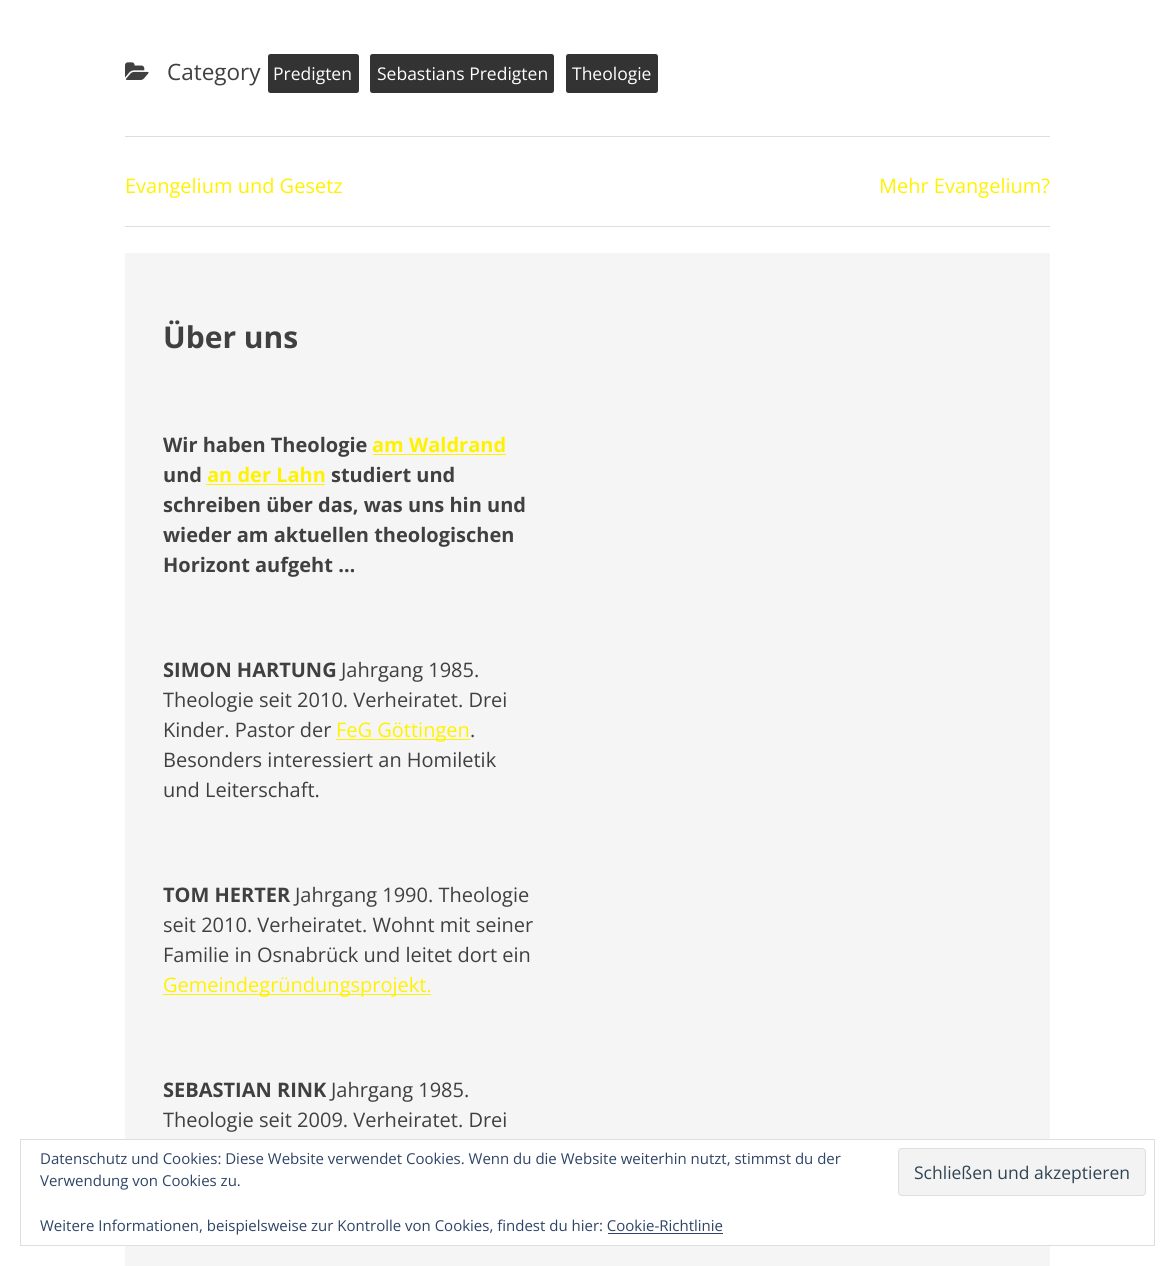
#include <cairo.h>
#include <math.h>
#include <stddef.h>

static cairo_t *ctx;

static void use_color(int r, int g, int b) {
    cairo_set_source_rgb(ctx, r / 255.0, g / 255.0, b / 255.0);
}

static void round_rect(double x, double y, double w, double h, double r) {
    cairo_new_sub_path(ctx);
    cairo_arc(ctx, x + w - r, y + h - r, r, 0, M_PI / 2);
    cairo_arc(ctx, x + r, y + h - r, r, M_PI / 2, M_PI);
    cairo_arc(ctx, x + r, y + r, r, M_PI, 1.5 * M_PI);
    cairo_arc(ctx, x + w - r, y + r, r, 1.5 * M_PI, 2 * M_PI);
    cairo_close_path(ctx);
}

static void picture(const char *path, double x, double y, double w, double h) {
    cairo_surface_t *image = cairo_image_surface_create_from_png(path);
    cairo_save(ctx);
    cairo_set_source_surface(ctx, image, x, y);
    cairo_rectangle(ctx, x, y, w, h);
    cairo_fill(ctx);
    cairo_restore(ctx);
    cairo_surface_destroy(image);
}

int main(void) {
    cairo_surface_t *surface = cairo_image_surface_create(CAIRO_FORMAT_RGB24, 1174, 1266);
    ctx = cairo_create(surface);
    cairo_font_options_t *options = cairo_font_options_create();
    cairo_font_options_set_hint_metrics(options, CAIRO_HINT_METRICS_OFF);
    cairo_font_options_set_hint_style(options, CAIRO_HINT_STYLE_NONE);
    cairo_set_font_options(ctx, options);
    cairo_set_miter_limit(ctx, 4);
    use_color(255, 255, 255);
    cairo_paint(ctx);
    use_color(221, 221, 221);
    cairo_rectangle(ctx, 125, 136, 925, 1);
    cairo_fill(ctx);
    picture("img1.png", 125, 62, 24, 18);
    cairo_select_font_face(ctx, "Open Sans", CAIRO_FONT_SLANT_NORMAL, CAIRO_FONT_WEIGHT_NORMAL);
    cairo_set_font_size(ctx, 22.5);
    use_color(64, 64, 64);
    cairo_move_to(ctx, 167, 80);
    cairo_show_text(ctx, "Category");
    use_color(51, 51, 51);
    round_rect(268, 54, 91, 39, 2.5);
    cairo_fill(ctx);
    cairo_set_font_size(ctx, 17.5);
    use_color(255, 255, 255);
    cairo_move_to(ctx, 273, 80);
    cairo_show_text(ctx, "Predigten");
    use_color(51, 51, 51);
    round_rect(370, 54, 184, 39, 2.5);
    cairo_fill(ctx);
    use_color(255, 255, 255);
    cairo_move_to(ctx, 377, 80);
    cairo_show_text(ctx, "Sebastians Predigten");
    use_color(51, 51, 51);
    round_rect(566, 54, 92, 39, 2.5);
    cairo_fill(ctx);
    use_color(255, 255, 255);
    cairo_move_to(ctx, 572, 80);
    cairo_show_text(ctx, "Theologie");
    use_color(221, 221, 221);
    cairo_rectangle(ctx, 125, 226, 925, 1);
    cairo_fill(ctx);
    cairo_set_font_size(ctx, 20);
    use_color(255, 242, 0);
    cairo_move_to(ctx, 125, 193);
    cairo_show_text(ctx, "Evangelium und Gesetz");
    cairo_move_to(ctx, 879, 193);
    cairo_show_text(ctx, "Mehr Evangelium?");
    use_color(245, 245, 245);
    cairo_rectangle(ctx, 125, 253, 925, 1013);
    cairo_fill(ctx);
    cairo_select_font_face(ctx, "Open Sans", CAIRO_FONT_SLANT_NORMAL, CAIRO_FONT_WEIGHT_BOLD);
    cairo_set_font_size(ctx, 30);
    use_color(64, 64, 64);
    cairo_move_to(ctx, 163, 348);
    cairo_show_text(ctx, "Über uns");
    cairo_set_font_size(ctx, 20);
    cairo_move_to(ctx, 163, 452);
    cairo_show_text(ctx, "Wir haben Theologie");
    use_color(255, 242, 0);
    cairo_move_to(ctx, 372, 452);
    cairo_show_text(ctx, "am Waldrand");
    cairo_rectangle(ctx, 373, 454, 133, 1);
    cairo_fill(ctx);
    use_color(64, 64, 64);
    cairo_move_to(ctx, 163, 482);
    cairo_show_text(ctx, "und");
    use_color(255, 242, 0);
    cairo_move_to(ctx, 207, 482);
    cairo_show_text(ctx, "an der Lahn");
    cairo_rectangle(ctx, 206, 484, 119, 1);
    cairo_fill(ctx);
    use_color(64, 64, 64);
    cairo_move_to(ctx, 331, 482);
    cairo_show_text(ctx, "studiert und");
    cairo_move_to(ctx, 163, 512);
    cairo_show_text(ctx, "schreiben über das, was uns hin und");
    cairo_move_to(ctx, 163, 542);
    cairo_show_text(ctx, "wieder am aktuellen theologischen");
    cairo_move_to(ctx, 163, 572);
    cairo_show_text(ctx, "Horizont aufgeht …");
    cairo_move_to(ctx, 163, 677);
    cairo_show_text(ctx, "SIMON HARTUNG");
    cairo_select_font_face(ctx, "Open Sans", CAIRO_FONT_SLANT_NORMAL, CAIRO_FONT_WEIGHT_NORMAL);
    cairo_move_to(ctx, 341, 677);
    cairo_show_text(ctx, "Jahrgang 1985.");
    cairo_move_to(ctx, 163, 707);
    cairo_show_text(ctx, "Theologie seit 2010. Verheiratet. Drei");
    cairo_move_to(ctx, 163, 737);
    cairo_show_text(ctx, "Kinder. Pastor der");
    use_color(255, 242, 0);
    cairo_rectangle(ctx, 336, 739, 134, 1);
    cairo_fill(ctx);
    cairo_move_to(ctx, 336, 737);
    cairo_show_text(ctx, "FeG Göttingen");
    use_color(64, 64, 64);
    cairo_move_to(ctx, 470, 737);
    cairo_show_text(ctx, ".");
    cairo_move_to(ctx, 163, 767);
    cairo_show_text(ctx, "Besonders interessiert an Homiletik");
    cairo_move_to(ctx, 163, 797);
    cairo_show_text(ctx, "und Leiterschaft.");
    cairo_select_font_face(ctx, "Open Sans", CAIRO_FONT_SLANT_NORMAL, CAIRO_FONT_WEIGHT_BOLD);
    cairo_move_to(ctx, 163, 902);
    cairo_show_text(ctx, "TOM HERTER");
    cairo_select_font_face(ctx, "Open Sans", CAIRO_FONT_SLANT_NORMAL, CAIRO_FONT_WEIGHT_NORMAL);
    cairo_move_to(ctx, 295, 902);
    cairo_show_text(ctx, "Jahrgang 1990. Theologie");
    cairo_move_to(ctx, 163, 932);
    cairo_show_text(ctx, "seit 2010. Verheiratet. Wohnt mit seiner");
    cairo_move_to(ctx, 163, 962);
    cairo_show_text(ctx, "Familie in Osnabrück und leitet dort ein");
    use_color(255, 242, 0);
    cairo_rectangle(ctx, 163, 994, 268, 1);
    cairo_fill(ctx);
    cairo_move_to(ctx, 163, 992);
    cairo_show_text(ctx, "Gemeindegründungsprojekt.");
    cairo_select_font_face(ctx, "Open Sans", CAIRO_FONT_SLANT_NORMAL, CAIRO_FONT_WEIGHT_BOLD);
    use_color(64, 64, 64);
    cairo_move_to(ctx, 163, 1097);
    cairo_show_text(ctx, "SEBASTIAN RINK");
    cairo_select_font_face(ctx, "Open Sans", CAIRO_FONT_SLANT_NORMAL, CAIRO_FONT_WEIGHT_NORMAL);
    cairo_move_to(ctx, 331, 1097);
    cairo_show_text(ctx, "Jahrgang 1985.");
    cairo_move_to(ctx, 163, 1127);
    cairo_show_text(ctx, "Theologie seit 2009. Verheiratet. Drei");
    use_color(255, 255, 255);
    cairo_rectangle(ctx, 125, 1140, 925, 105);
    cairo_fill(ctx);
    cairo_rectangle(ctx, 20.5, 1139.5, 1134, 106);
    use_color(222, 222, 222);
    cairo_set_line_width(ctx, 1);
    cairo_stroke(ctx);
    cairo_set_font_size(ctx, 15);
    use_color(46, 68, 103);
    cairo_move_to(ctx, 40, 1164);
    cairo_show_text(ctx, "Datenschutz und Cookies: Diese Website verwendet Cookies. Wenn du die Website weiterhin nutzt, stimmst du der");
    cairo_move_to(ctx, 40, 1186);
    cairo_show_text(ctx, "Verwendung von Cookies zu.");
    use_color(243, 243, 243);
    round_rect(898.5, 1148.5, 247, 47, 3.5);
    cairo_fill_preserve(ctx);
    use_color(222, 222, 222);
    cairo_stroke(ctx);
    cairo_set_font_size(ctx, 17.5);
    use_color(46, 68, 83);
    cairo_move_to(ctx, 914, 1179);
    cairo_show_text(ctx, "Schließen und akzeptieren");
    cairo_set_font_size(ctx, 15);
    use_color(46, 68, 103);
    cairo_move_to(ctx, 40, 1231);
    cairo_show_text(ctx, "Weitere Informationen, beispielsweise zur Kontrolle von Cookies, findest du hier: Cookie-Richtlinie");
    cairo_rectangle(ctx, 608, 1233, 115, 1);
    cairo_fill(ctx);
    cairo_surface_write_to_png(surface, "result.png");
    cairo_font_options_destroy(options);
    cairo_destroy(ctx);
    cairo_surface_destroy(surface);
    return 0;
}
